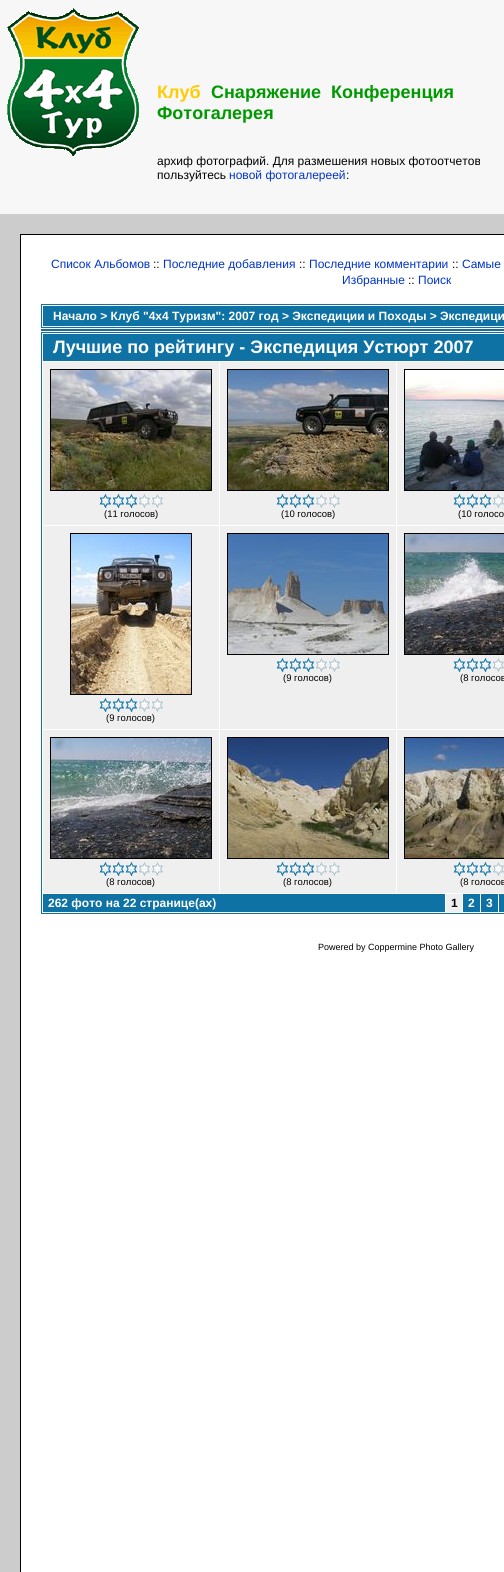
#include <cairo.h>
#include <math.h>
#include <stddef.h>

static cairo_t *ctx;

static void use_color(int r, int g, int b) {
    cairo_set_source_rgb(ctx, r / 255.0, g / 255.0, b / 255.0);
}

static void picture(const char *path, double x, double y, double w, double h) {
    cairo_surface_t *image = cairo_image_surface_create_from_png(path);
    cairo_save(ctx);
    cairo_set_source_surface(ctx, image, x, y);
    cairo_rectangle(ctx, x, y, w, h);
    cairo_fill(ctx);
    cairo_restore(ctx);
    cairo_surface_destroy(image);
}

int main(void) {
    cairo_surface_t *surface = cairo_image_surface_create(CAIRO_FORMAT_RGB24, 504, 1572);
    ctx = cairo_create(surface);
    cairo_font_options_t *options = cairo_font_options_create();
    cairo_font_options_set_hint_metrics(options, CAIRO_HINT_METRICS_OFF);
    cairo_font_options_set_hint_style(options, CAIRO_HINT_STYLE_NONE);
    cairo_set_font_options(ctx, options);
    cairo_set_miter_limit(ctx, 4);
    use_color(247, 247, 247);
    cairo_paint(ctx);
    picture("img1.png", 7, 8, 132, 148);
    cairo_select_font_face(ctx, "Liberation Sans", CAIRO_FONT_SLANT_NORMAL, CAIRO_FONT_WEIGHT_BOLD);
    cairo_set_font_size(ctx, 18);
    use_color(255, 204, 0);
    cairo_move_to(ctx, 157, 98);
    cairo_show_text(ctx, "Клуб");
    use_color(0, 153, 0);
    cairo_move_to(ctx, 211, 98);
    cairo_show_text(ctx, "Снаряжение");
    cairo_move_to(ctx, 331, 98);
    cairo_show_text(ctx, "Конференция");
    cairo_move_to(ctx, 157, 119);
    cairo_show_text(ctx, "Фотогалерея");
    cairo_select_font_face(ctx, "Liberation Sans", CAIRO_FONT_SLANT_NORMAL, CAIRO_FONT_WEIGHT_NORMAL);
    cairo_set_font_size(ctx, 12);
    use_color(0, 0, 0);
    cairo_move_to(ctx, 157, 165);
    cairo_show_text(ctx, "архиф фотографий. Для размешения новых фотоотчетов");
    cairo_move_to(ctx, 157, 179);
    cairo_show_text(ctx, "пользуйтесь");
    use_color(0, 51, 204);
    cairo_move_to(ctx, 229, 179);
    cairo_show_text(ctx, "новой фотогалереей");
    use_color(0, 0, 0);
    cairo_move_to(ctx, 346, 179);
    cairo_show_text(ctx, ":");
    use_color(204, 204, 204);
    cairo_rectangle(ctx, 0, 214, 504, 1358);
    cairo_fill(ctx);
    use_color(255, 255, 255);
    cairo_rectangle(ctx, 20.5, 234.5, 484, 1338);
    cairo_fill_preserve(ctx);
    use_color(0, 0, 0);
    cairo_set_line_width(ctx, 1);
    cairo_stroke(ctx);
    use_color(0, 51, 204);
    cairo_move_to(ctx, 51, 268);
    cairo_show_text(ctx, "Список Альбомов");
    use_color(0, 0, 0);
    cairo_move_to(ctx, 153, 268);
    cairo_show_text(ctx, "::");
    use_color(0, 51, 204);
    cairo_move_to(ctx, 163, 268);
    cairo_show_text(ctx, "Последние добавления");
    use_color(0, 0, 0);
    cairo_move_to(ctx, 299, 268);
    cairo_show_text(ctx, "::");
    use_color(0, 51, 204);
    cairo_move_to(ctx, 309, 268);
    cairo_show_text(ctx, "Последние комментарии");
    use_color(0, 0, 0);
    cairo_move_to(ctx, 452, 268);
    cairo_show_text(ctx, "::");
    use_color(0, 51, 204);
    cairo_move_to(ctx, 462, 268);
    cairo_show_text(ctx, "Самые");
    cairo_move_to(ctx, 342, 284);
    cairo_show_text(ctx, "Избранные");
    use_color(0, 0, 0);
    cairo_move_to(ctx, 408, 284);
    cairo_show_text(ctx, "::");
    use_color(0, 51, 204);
    cairo_move_to(ctx, 418, 284);
    cairo_show_text(ctx, "Поиск");
    cairo_rectangle(ctx, 41.5, 304.5, 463, 23);
    use_color(14, 114, 164);
    cairo_stroke(ctx);
    cairo_rectangle(ctx, 43, 306, 461, 20);
    cairo_fill(ctx);
    cairo_select_font_face(ctx, "Liberation Sans", CAIRO_FONT_SLANT_NORMAL, CAIRO_FONT_WEIGHT_BOLD);
    use_color(255, 255, 255);
    cairo_move_to(ctx, 53, 320);
    cairo_show_text(ctx, "Начало > Клуб \"4х4 Туризм\": 2007 год > Экспедиции и Походы > Экспедици");
    use_color(14, 114, 164);
    cairo_rectangle(ctx, 41, 329, 463, 2);
    cairo_fill(ctx);
    cairo_rectangle(ctx, 41.5, 332.5, 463, 581);
    cairo_stroke(ctx);
    cairo_rectangle(ctx, 43, 334, 461, 27);
    cairo_fill(ctx);
    cairo_set_font_size(ctx, 18);
    use_color(255, 255, 255);
    cairo_move_to(ctx, 53, 353);
    cairo_show_text(ctx, "Лучшие по рейтингу - Экспедиция Устюрт 2007");
    use_color(239, 239, 239);
    cairo_rectangle(ctx, 43, 362, 176, 163);
    cairo_fill(ctx);
    cairo_rectangle(ctx, 50.5, 369.5, 161, 121);
    use_color(0, 0, 0);
    cairo_stroke(ctx);
    picture("img2.png", 51, 370, 160, 120);
    picture("img3.png", 99, 494, 65, 14);
    cairo_select_font_face(ctx, "Liberation Sans", CAIRO_FONT_SLANT_NORMAL, CAIRO_FONT_WEIGHT_NORMAL);
    cairo_set_font_size(ctx, 9.5);
    cairo_move_to(ctx, 104, 517);
    cairo_show_text(ctx, "(11 голосов)");
    use_color(239, 239, 239);
    cairo_rectangle(ctx, 220, 362, 176, 163);
    cairo_fill(ctx);
    cairo_rectangle(ctx, 227.5, 369.5, 161, 121);
    use_color(0, 0, 0);
    cairo_stroke(ctx);
    picture("img4.png", 228, 370, 160, 120);
    picture("img3.png", 276, 494, 65, 14);
    cairo_move_to(ctx, 281, 517);
    cairo_show_text(ctx, "(10 голосов)");
    use_color(239, 239, 239);
    cairo_rectangle(ctx, 397, 362, 107, 163);
    cairo_fill(ctx);
    cairo_rectangle(ctx, 404.5, 369.5, 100, 121);
    use_color(0, 0, 0);
    cairo_stroke(ctx);
    picture("img5.png", 405, 370, 99, 120);
    picture("img6.png", 453, 494, 51, 14);
    cairo_move_to(ctx, 458, 517);
    cairo_show_text(ctx, "(10 голосо");
    use_color(239, 239, 239);
    cairo_rectangle(ctx, 220, 526, 176, 203);
    cairo_fill(ctx);
    cairo_rectangle(ctx, 227.5, 533.5, 161, 121);
    use_color(0, 0, 0);
    cairo_stroke(ctx);
    picture("img7.png", 228, 534, 160, 120);
    picture("img3.png", 276, 658, 65, 14);
    cairo_move_to(ctx, 283, 681);
    cairo_show_text(ctx, "(9 голосов)");
    use_color(239, 239, 239);
    cairo_rectangle(ctx, 397, 526, 107, 203);
    cairo_fill(ctx);
    cairo_rectangle(ctx, 404.5, 533.5, 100, 121);
    use_color(0, 0, 0);
    cairo_stroke(ctx);
    picture("img8.png", 405, 534, 99, 120);
    picture("img6.png", 453, 658, 51, 14);
    cairo_move_to(ctx, 460, 681);
    cairo_show_text(ctx, "(8 голосов");
    use_color(239, 239, 239);
    cairo_rectangle(ctx, 43, 526, 176, 203);
    cairo_fill(ctx);
    cairo_rectangle(ctx, 70.5, 533.5, 121, 161);
    use_color(0, 0, 0);
    cairo_stroke(ctx);
    picture("img9.png", 71, 534, 120, 160);
    picture("img3.png", 99, 698, 65, 14);
    cairo_move_to(ctx, 106, 721);
    cairo_show_text(ctx, "(9 голосов)");
    use_color(239, 239, 239);
    cairo_rectangle(ctx, 43, 730, 176, 163);
    cairo_fill(ctx);
    cairo_rectangle(ctx, 50.5, 737.5, 161, 121);
    use_color(0, 0, 0);
    cairo_stroke(ctx);
    picture("img10.png", 51, 738, 160, 120);
    picture("img3.png", 99, 862, 65, 14);
    cairo_move_to(ctx, 106, 885);
    cairo_show_text(ctx, "(8 голосов)");
    use_color(239, 239, 239);
    cairo_rectangle(ctx, 220, 730, 176, 163);
    cairo_fill(ctx);
    cairo_rectangle(ctx, 227.5, 737.5, 161, 121);
    use_color(0, 0, 0);
    cairo_stroke(ctx);
    picture("img11.png", 228, 738, 160, 120);
    picture("img3.png", 276, 862, 65, 14);
    cairo_move_to(ctx, 283, 885);
    cairo_show_text(ctx, "(8 голосов)");
    use_color(239, 239, 239);
    cairo_rectangle(ctx, 397, 730, 107, 163);
    cairo_fill(ctx);
    cairo_rectangle(ctx, 404.5, 737.5, 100, 121);
    use_color(0, 0, 0);
    cairo_stroke(ctx);
    picture("img12.png", 405, 738, 99, 120);
    picture("img6.png", 453, 862, 51, 14);
    cairo_move_to(ctx, 460, 885);
    cairo_show_text(ctx, "(8 голосов");
    use_color(14, 114, 164);
    cairo_rectangle(ctx, 43, 894, 402, 18);
    cairo_fill(ctx);
    cairo_select_font_face(ctx, "Liberation Sans", CAIRO_FONT_SLANT_NORMAL, CAIRO_FONT_WEIGHT_BOLD);
    cairo_set_font_size(ctx, 12);
    use_color(255, 255, 255);
    cairo_move_to(ctx, 48, 907);
    cairo_show_text(ctx, "262 фото на 22 странице(ах)");
    use_color(239, 239, 239);
    cairo_rectangle(ctx, 446, 894, 16, 18);
    cairo_fill(ctx);
    use_color(0, 0, 0);
    cairo_move_to(ctx, 451, 907);
    cairo_show_text(ctx, "1");
    use_color(14, 114, 164);
    cairo_rectangle(ctx, 463, 894, 17, 18);
    cairo_fill(ctx);
    use_color(255, 255, 255);
    cairo_move_to(ctx, 468, 907);
    cairo_show_text(ctx, "2");
    use_color(14, 114, 164);
    cairo_rectangle(ctx, 481, 894, 17, 18);
    cairo_fill(ctx);
    use_color(255, 255, 255);
    cairo_move_to(ctx, 486, 907);
    cairo_show_text(ctx, "3");
    use_color(14, 114, 164);
    cairo_rectangle(ctx, 499, 894, 5, 18);
    cairo_fill(ctx);
    cairo_select_font_face(ctx, "Liberation Sans", CAIRO_FONT_SLANT_NORMAL, CAIRO_FONT_WEIGHT_NORMAL);
    cairo_set_font_size(ctx, 9);
    use_color(0, 0, 0);
    cairo_move_to(ctx, 318, 950);
    cairo_show_text(ctx, "Powered by Coppermine Photo Gallery");
    cairo_surface_write_to_png(surface, "result.png");
    cairo_font_options_destroy(options);
    cairo_destroy(ctx);
    cairo_surface_destroy(surface);
    return 0;
}
